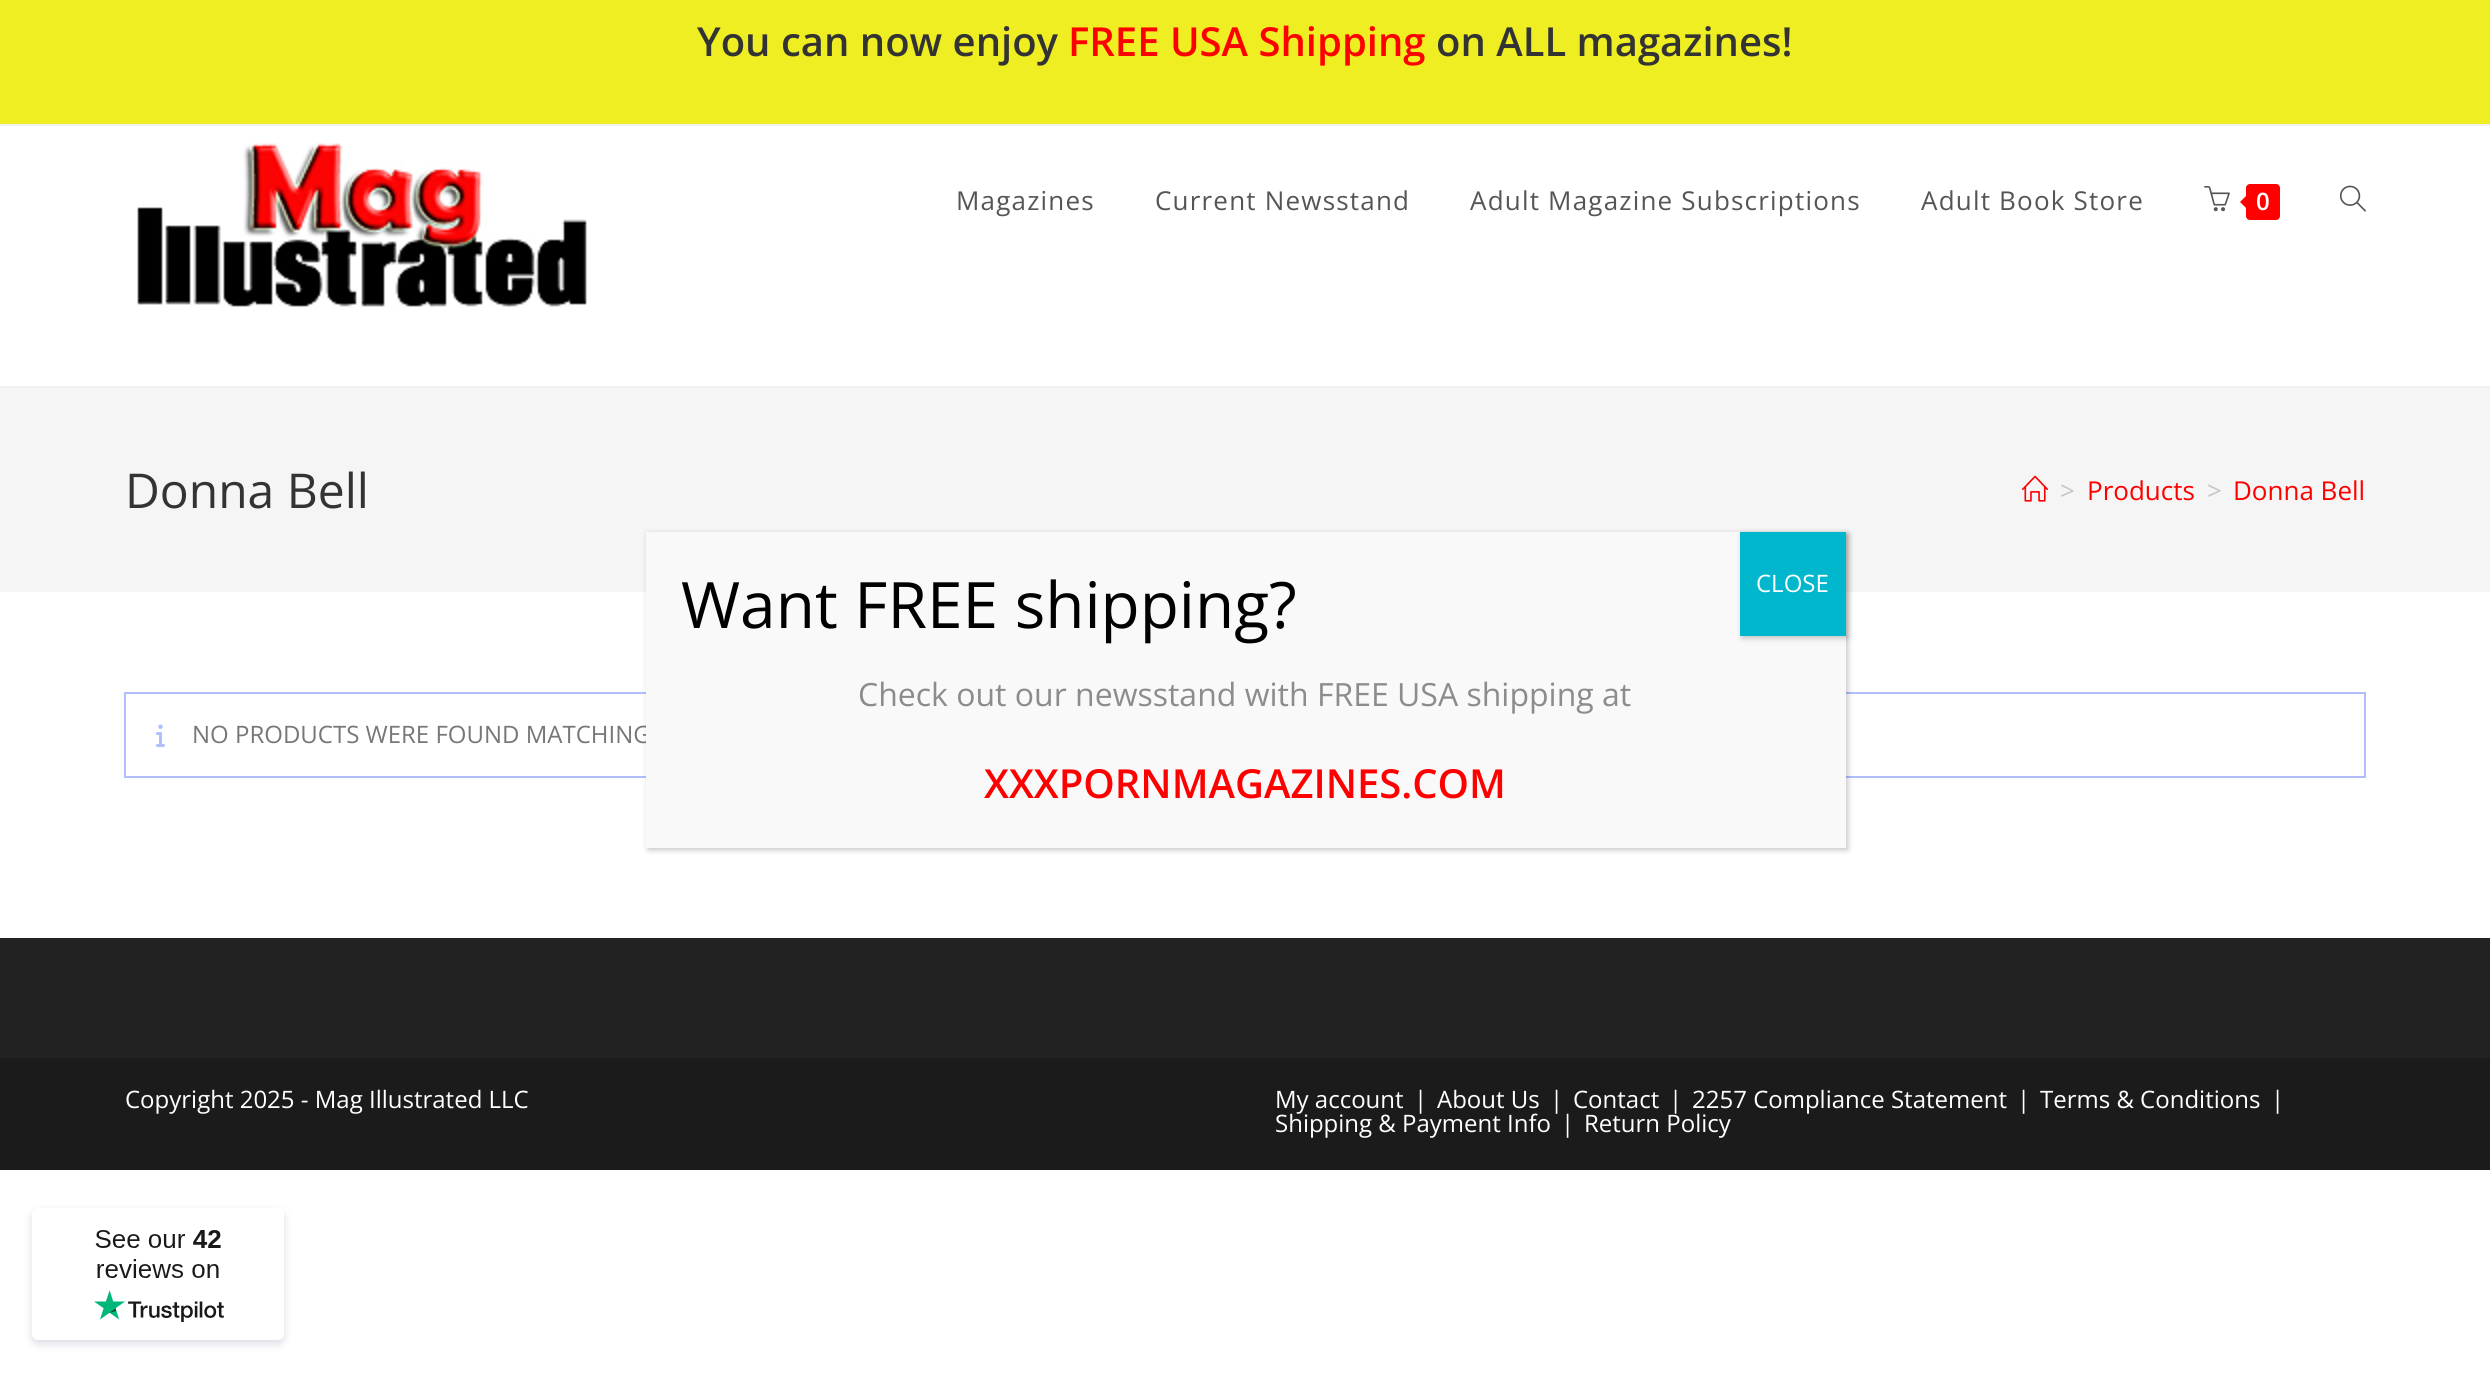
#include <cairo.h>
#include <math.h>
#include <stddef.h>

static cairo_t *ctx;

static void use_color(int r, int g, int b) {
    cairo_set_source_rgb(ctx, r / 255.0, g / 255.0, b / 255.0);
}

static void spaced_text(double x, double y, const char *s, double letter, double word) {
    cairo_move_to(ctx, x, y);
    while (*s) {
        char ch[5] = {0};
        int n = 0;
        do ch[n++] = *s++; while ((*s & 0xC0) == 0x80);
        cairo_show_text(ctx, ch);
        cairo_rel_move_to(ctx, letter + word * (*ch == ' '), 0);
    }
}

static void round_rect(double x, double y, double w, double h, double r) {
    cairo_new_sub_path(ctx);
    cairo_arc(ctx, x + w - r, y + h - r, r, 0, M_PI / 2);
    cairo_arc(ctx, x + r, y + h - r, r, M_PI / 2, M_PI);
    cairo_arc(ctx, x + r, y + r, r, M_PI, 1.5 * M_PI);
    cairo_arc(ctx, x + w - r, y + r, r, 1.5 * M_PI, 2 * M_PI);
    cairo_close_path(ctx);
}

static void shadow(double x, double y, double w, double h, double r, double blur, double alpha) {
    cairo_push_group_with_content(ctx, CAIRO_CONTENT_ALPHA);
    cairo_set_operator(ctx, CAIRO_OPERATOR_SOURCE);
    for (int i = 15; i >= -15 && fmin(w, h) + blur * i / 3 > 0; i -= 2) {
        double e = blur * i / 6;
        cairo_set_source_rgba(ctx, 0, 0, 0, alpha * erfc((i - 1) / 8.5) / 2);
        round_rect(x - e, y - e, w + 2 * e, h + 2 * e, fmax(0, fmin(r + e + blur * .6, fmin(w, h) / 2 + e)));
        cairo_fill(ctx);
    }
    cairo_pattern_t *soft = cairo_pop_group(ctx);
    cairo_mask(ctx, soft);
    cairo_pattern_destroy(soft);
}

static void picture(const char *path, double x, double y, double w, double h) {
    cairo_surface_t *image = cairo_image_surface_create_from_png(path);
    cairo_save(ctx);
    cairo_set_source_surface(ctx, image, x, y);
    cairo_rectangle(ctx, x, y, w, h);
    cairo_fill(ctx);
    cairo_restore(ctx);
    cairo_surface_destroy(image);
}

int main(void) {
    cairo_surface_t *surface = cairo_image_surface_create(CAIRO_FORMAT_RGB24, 2490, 1379);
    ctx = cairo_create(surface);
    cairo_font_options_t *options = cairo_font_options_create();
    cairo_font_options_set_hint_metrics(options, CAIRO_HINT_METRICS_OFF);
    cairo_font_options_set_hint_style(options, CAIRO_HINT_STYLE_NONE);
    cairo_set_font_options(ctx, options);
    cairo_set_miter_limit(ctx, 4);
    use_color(255, 255, 255);
    cairo_paint(ctx);
    use_color(238, 238, 34);
    cairo_rectangle(ctx, 0, 0, 2490, 124);
    cairo_fill(ctx);
    use_color(241, 241, 241);
    cairo_rectangle(ctx, 0, 124, 2490, 2);
    cairo_fill(ctx);
    cairo_select_font_face(ctx, "Open Sans SemiBold", CAIRO_FONT_SLANT_NORMAL, CAIRO_FONT_WEIGHT_NORMAL);
    cairo_set_font_size(ctx, 40);
    use_color(51, 51, 51);
    cairo_move_to(ctx, 697, 56);
    cairo_show_text(ctx, "You can now enjoy");
    use_color(255, 0, 0);
    cairo_move_to(ctx, 1068, 56);
    cairo_show_text(ctx, "FREE USA Shipping");
    use_color(51, 51, 51);
    cairo_move_to(ctx, 1436, 56);
    cairo_show_text(ctx, "on ALL magazines!");
    use_color(241, 241, 241);
    cairo_rectangle(ctx, 0, 386, 2490, 2);
    cairo_fill(ctx);
    picture("img1.png", 137, 143, 450, 165);
    cairo_select_font_face(ctx, "Open Sans", CAIRO_FONT_SLANT_NORMAL, CAIRO_FONT_WEIGHT_NORMAL);
    cairo_set_font_size(ctx, 26);
    use_color(85, 85, 85);
    spaced_text(956, 210, "Magazines", 1.2, 0);
    spaced_text(1155, 210, "Current Newsstand", 1.2, 0);
    spaced_text(1470, 210, "Adult Magazine Subscriptions", 1.2, 0);
    spaced_text(1921, 210, "Adult Book Store", 1.2, 0);
    picture("img2.png", 2204, 186, 26, 26);
    use_color(255, 0, 0);
    round_rect(2246, 184, 34, 36, 4);
    cairo_fill(ctx);
    cairo_new_path(ctx);
    cairo_move_to(ctx, 2250, 192);
    cairo_line_to(ctx, 2250, 212);
    cairo_line_to(ctx, 2240, 202);
    cairo_close_path(ctx);
    cairo_fill(ctx);
    cairo_select_font_face(ctx, "Open Sans SemiBold", CAIRO_FONT_SLANT_NORMAL, CAIRO_FONT_WEIGHT_NORMAL);
    cairo_set_font_size(ctx, 24);
    use_color(255, 255, 255);
    cairo_move_to(ctx, 2256, 210);
    cairo_show_text(ctx, "0");
    picture("img3.png", 2339, 185, 27, 27);
    use_color(245, 245, 245);
    cairo_rectangle(ctx, 0, 388, 2490, 204);
    cairo_fill(ctx);
    cairo_select_font_face(ctx, "Open Sans", CAIRO_FONT_SLANT_NORMAL, CAIRO_FONT_WEIGHT_NORMAL);
    cairo_set_font_size(ctx, 48);
    use_color(51, 51, 51);
    cairo_move_to(ctx, 125, 508);
    cairo_show_text(ctx, "Donna Bell");
    picture("img4.png", 2022, 475, 26, 27);
    cairo_set_font_size(ctx, 26);
    use_color(198, 198, 198);
    cairo_move_to(ctx, 2060, 500);
    cairo_show_text(ctx, ">");
    use_color(255, 0, 0);
    cairo_move_to(ctx, 2087, 500);
    cairo_show_text(ctx, "Products");
    use_color(198, 198, 198);
    cairo_move_to(ctx, 2207, 500);
    cairo_show_text(ctx, ">");
    use_color(255, 0, 0);
    cairo_move_to(ctx, 2233, 500);
    cairo_show_text(ctx, "Donna Bell");
    cairo_rectangle(ctx, 125, 693, 2240, 84);
    use_color(177, 190, 253);
    cairo_stroke(ctx);
    picture("img5.png", 156, 724, 9, 23);
    cairo_set_font_size(ctx, 24);
    use_color(119, 119, 119);
    cairo_move_to(ctx, 192, 743);
    cairo_show_text(ctx, "NO PRODUCTS WERE FOUND MATCHING");
    use_color(34, 34, 34);
    cairo_rectangle(ctx, 0, 938, 2490, 120);
    cairo_fill(ctx);
    use_color(27, 27, 27);
    cairo_rectangle(ctx, 0, 1058, 2490, 112);
    cairo_fill(ctx);
    use_color(255, 255, 255);
    cairo_move_to(ctx, 125, 1108);
    cairo_show_text(ctx, "Copyright 2025 - Mag Illustrated LLC");
    cairo_move_to(ctx, 1275, 1108);
    cairo_show_text(ctx, "My account");
    cairo_move_to(ctx, 1414, 1108);
    cairo_show_text(ctx, "|");
    cairo_move_to(ctx, 1437, 1108);
    cairo_show_text(ctx, "About Us");
    cairo_move_to(ctx, 1550, 1108);
    cairo_show_text(ctx, "|");
    cairo_move_to(ctx, 1573, 1108);
    cairo_show_text(ctx, "Contact");
    cairo_move_to(ctx, 1669, 1108);
    cairo_show_text(ctx, "|");
    cairo_move_to(ctx, 1692, 1108);
    cairo_show_text(ctx, "2257 Compliance Statement");
    cairo_move_to(ctx, 2017, 1108);
    cairo_show_text(ctx, "|");
    cairo_move_to(ctx, 2040, 1108);
    cairo_show_text(ctx, "Terms & Conditions");
    cairo_move_to(ctx, 2271, 1108);
    cairo_show_text(ctx, "|");
    cairo_move_to(ctx, 1275, 1132);
    cairo_show_text(ctx, "Shipping & Payment Info");
    cairo_move_to(ctx, 1561, 1132);
    cairo_show_text(ctx, "|");
    cairo_move_to(ctx, 1584, 1132);
    cairo_show_text(ctx, "Return Policy");
    use_color(2, 2, 2);
    shadow(648, 534, 1200, 316, 0, 3, 0.23);
    use_color(249, 249, 249);
    cairo_rectangle(ctx, 646, 532, 1200, 316);
    cairo_fill(ctx);
    cairo_set_font_size(ctx, 64);
    use_color(0, 0, 0);
    cairo_move_to(ctx, 681, 628);
    cairo_show_text(ctx, "Want FREE shipping?");
    use_color(2, 2, 2);
    shadow(1742, 534, 106, 104, 0, 3, 0.23);
    use_color(0, 183, 205);
    cairo_rectangle(ctx, 1740, 532, 106, 104);
    cairo_fill(ctx);
    cairo_set_font_size(ctx, 24);
    use_color(255, 255, 255);
    cairo_move_to(ctx, 1756, 592);
    cairo_show_text(ctx, "CLOSE");
    cairo_set_font_size(ctx, 32);
    use_color(140, 140, 140);
    cairo_move_to(ctx, 858, 706);
    cairo_show_text(ctx, "Check out our newsstand with FREE USA shipping at");
    cairo_select_font_face(ctx, "Open Sans SemiBold", CAIRO_FONT_SLANT_NORMAL, CAIRO_FONT_WEIGHT_NORMAL);
    cairo_set_font_size(ctx, 40);
    use_color(255, 0, 0);
    cairo_move_to(ctx, 984, 798);
    cairo_show_text(ctx, "XXXPORNMAGAZINES.COM");
    use_color(220, 220, 230);
    shadow(32, 1212, 252, 132, 6, 4, 1);
    use_color(255, 255, 255);
    round_rect(32, 1208, 252, 132, 6);
    cairo_fill(ctx);
    picture("img6.png", 94, 1230, 130, 92);
    cairo_surface_write_to_png(surface, "result.png");
    cairo_font_options_destroy(options);
    cairo_destroy(ctx);
    cairo_surface_destroy(surface);
    return 0;
}
